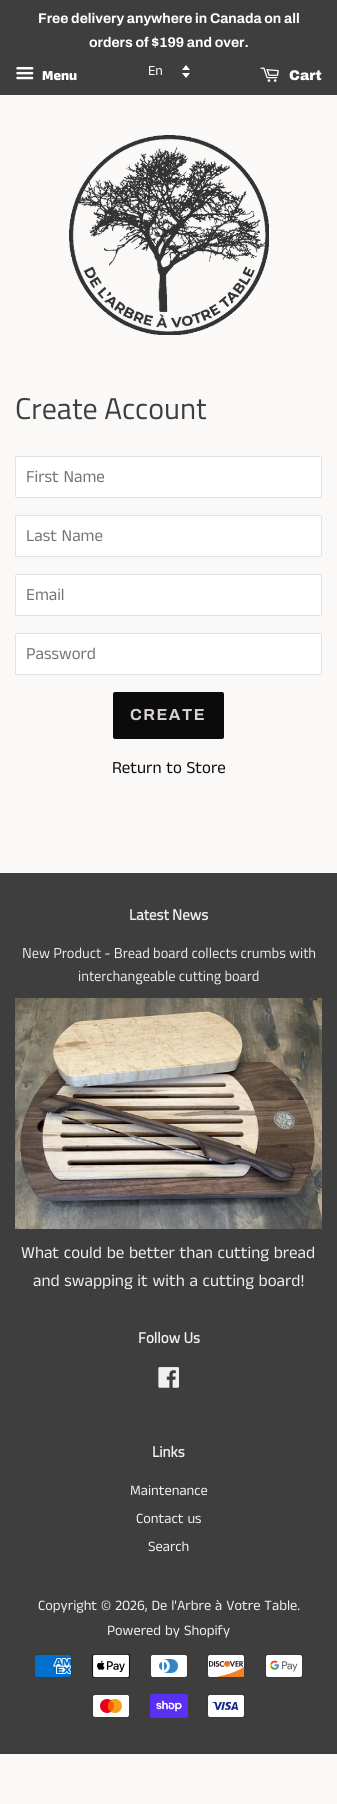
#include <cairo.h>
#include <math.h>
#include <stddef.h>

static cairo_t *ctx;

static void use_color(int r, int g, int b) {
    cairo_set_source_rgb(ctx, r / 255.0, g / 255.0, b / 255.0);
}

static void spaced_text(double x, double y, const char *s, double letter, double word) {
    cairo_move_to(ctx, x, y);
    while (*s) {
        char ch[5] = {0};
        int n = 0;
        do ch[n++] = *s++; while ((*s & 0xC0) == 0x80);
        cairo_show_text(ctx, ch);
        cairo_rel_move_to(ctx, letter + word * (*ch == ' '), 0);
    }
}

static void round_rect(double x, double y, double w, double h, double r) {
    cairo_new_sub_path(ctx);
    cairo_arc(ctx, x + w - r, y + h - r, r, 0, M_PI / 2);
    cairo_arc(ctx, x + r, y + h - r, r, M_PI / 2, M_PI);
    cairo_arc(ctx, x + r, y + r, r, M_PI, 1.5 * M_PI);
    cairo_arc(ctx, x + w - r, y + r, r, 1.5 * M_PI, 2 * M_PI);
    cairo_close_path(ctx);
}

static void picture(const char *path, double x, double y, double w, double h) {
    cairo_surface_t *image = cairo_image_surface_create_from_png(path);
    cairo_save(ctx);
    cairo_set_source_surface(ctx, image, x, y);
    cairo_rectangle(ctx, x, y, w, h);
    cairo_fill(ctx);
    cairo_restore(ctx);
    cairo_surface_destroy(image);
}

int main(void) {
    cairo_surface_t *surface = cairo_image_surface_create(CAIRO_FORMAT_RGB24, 337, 1804);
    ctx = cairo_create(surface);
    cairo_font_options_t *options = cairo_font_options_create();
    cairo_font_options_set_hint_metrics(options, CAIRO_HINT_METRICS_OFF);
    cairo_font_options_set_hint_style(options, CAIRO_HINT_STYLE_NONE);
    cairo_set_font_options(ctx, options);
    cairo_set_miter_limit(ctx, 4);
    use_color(250, 249, 247);
    cairo_paint(ctx);
    use_color(62, 62, 62);
    cairo_rectangle(ctx, 0, 0, 337, 95);
    cairo_fill(ctx);
    cairo_select_font_face(ctx, "Archivo", CAIRO_FONT_SLANT_NORMAL, CAIRO_FONT_WEIGHT_BOLD);
    cairo_set_font_size(ctx, 14);
    use_color(255, 255, 255);
    cairo_move_to(ctx, 38, 23);
    cairo_show_text(ctx, "Free delivery anywhere in Canada on all");
    cairo_move_to(ctx, 89, 47);
    cairo_show_text(ctx, "orders of $199 and over.");
    picture("img1.png", 16, 67, 18, 13);
    cairo_select_font_face(ctx, "Anek Tamil ExtraBold", CAIRO_FONT_SLANT_NORMAL, CAIRO_FONT_WEIGHT_NORMAL);
    cairo_move_to(ctx, 42, 80);
    cairo_show_text(ctx, "Menu");
    picture("img2.png", 182, 65, 8, 13);
    cairo_select_font_face(ctx, "Anek Tamil", CAIRO_FONT_SLANT_NORMAL, CAIRO_FONT_WEIGHT_NORMAL);
    cairo_move_to(ctx, 148, 75);
    cairo_show_text(ctx, "En");
    picture("img3.png", 260, 67, 19, 15);
    cairo_select_font_face(ctx, "Archivo Black", CAIRO_FONT_SLANT_NORMAL, CAIRO_FONT_WEIGHT_NORMAL);
    cairo_move_to(ctx, 289, 80);
    cairo_show_text(ctx, "Cart");
    picture("img4.png", 69, 135, 200, 200);
    cairo_select_font_face(ctx, "Titillium Web", CAIRO_FONT_SLANT_NORMAL, CAIRO_FONT_WEIGHT_NORMAL);
    cairo_set_font_size(ctx, 30);
    use_color(62, 62, 62);
    cairo_move_to(ctx, 15, 419);
    cairo_show_text(ctx, "Create Account");
    use_color(255, 255, 255);
    round_rect(15.5, 456.5, 306, 41, 1.5);
    cairo_fill_preserve(ctx);
    use_color(226, 226, 226);
    cairo_set_line_width(ctx, 1);
    cairo_stroke(ctx);
    cairo_select_font_face(ctx, "Anek Tamil", CAIRO_FONT_SLANT_NORMAL, CAIRO_FONT_WEIGHT_NORMAL);
    cairo_set_font_size(ctx, 17);
    use_color(117, 117, 117);
    cairo_move_to(ctx, 26, 482);
    cairo_show_text(ctx, "First Name");
    use_color(255, 255, 255);
    round_rect(15.5, 515.5, 306, 41, 1.5);
    cairo_fill_preserve(ctx);
    use_color(226, 226, 226);
    cairo_stroke(ctx);
    use_color(117, 117, 117);
    cairo_move_to(ctx, 26, 541);
    cairo_show_text(ctx, "Last Name");
    use_color(255, 255, 255);
    round_rect(15.5, 574.5, 306, 41, 1.5);
    cairo_fill_preserve(ctx);
    use_color(226, 226, 226);
    cairo_stroke(ctx);
    use_color(117, 117, 117);
    cairo_move_to(ctx, 26, 600);
    cairo_show_text(ctx, "Email");
    use_color(255, 255, 255);
    round_rect(15.5, 633.5, 306, 41, 1.5);
    cairo_fill_preserve(ctx);
    use_color(226, 226, 226);
    cairo_stroke(ctx);
    use_color(117, 117, 117);
    cairo_move_to(ctx, 26, 659);
    cairo_show_text(ctx, "Password");
    use_color(12, 11, 11);
    round_rect(113, 692, 111, 47, 2);
    cairo_fill(ctx);
    cairo_select_font_face(ctx, "Archivo", CAIRO_FONT_SLANT_NORMAL, CAIRO_FONT_WEIGHT_BOLD);
    cairo_set_font_size(ctx, 16);
    use_color(215, 209, 209);
    spaced_text(130, 720, "CREATE", 1.5, 0);
    cairo_select_font_face(ctx, "Anek Tamil", CAIRO_FONT_SLANT_NORMAL, CAIRO_FONT_WEIGHT_NORMAL);
    cairo_set_font_size(ctx, 17);
    use_color(12, 11, 11);
    cairo_move_to(ctx, 112, 773);
    cairo_show_text(ctx, "Return to Store");
    use_color(62, 62, 62);
    cairo_rectangle(ctx, 0, 873, 337, 881);
    cairo_fill(ctx);
    cairo_select_font_face(ctx, "Titillium Web", CAIRO_FONT_SLANT_NORMAL, CAIRO_FONT_WEIGHT_BOLD);
    cairo_set_font_size(ctx, 15);
    use_color(242, 240, 238);
    cairo_move_to(ctx, 129, 920);
    cairo_show_text(ctx, "Latest News");
    cairo_select_font_face(ctx, "Titillium Web", CAIRO_FONT_SLANT_NORMAL, CAIRO_FONT_WEIGHT_NORMAL);
    cairo_set_font_size(ctx, 14.45);
    cairo_move_to(ctx, 22, 958);
    cairo_show_text(ctx, "New Product - Bread board collects crumbs with");
    cairo_move_to(ctx, 78, 981);
    cairo_show_text(ctx, "interchangeable cutting board");
    picture("img5.png", 15, 998, 307, 231);
    cairo_select_font_face(ctx, "Anek Tamil", CAIRO_FONT_SLANT_NORMAL, CAIRO_FONT_WEIGHT_NORMAL);
    cairo_set_font_size(ctx, 17);
    cairo_move_to(ctx, 21, 1258);
    cairo_show_text(ctx, "What could be better than cutting bread");
    cairo_move_to(ctx, 33, 1286);
    cairo_show_text(ctx, "and swapping it with a cutting board!");
    cairo_select_font_face(ctx, "Titillium Web", CAIRO_FONT_SLANT_NORMAL, CAIRO_FONT_WEIGHT_BOLD);
    cairo_set_font_size(ctx, 15);
    cairo_move_to(ctx, 138, 1343);
    cairo_show_text(ctx, "Follow Us");
    picture("img6.png", 158, 1367, 21, 21);
    cairo_move_to(ctx, 152, 1457);
    cairo_show_text(ctx, "Links");
    cairo_select_font_face(ctx, "Anek Tamil", CAIRO_FONT_SLANT_NORMAL, CAIRO_FONT_WEIGHT_NORMAL);
    cairo_set_font_size(ctx, 14.45);
    cairo_move_to(ctx, 130, 1495);
    cairo_show_text(ctx, "Maintenance");
    cairo_move_to(ctx, 136, 1523);
    cairo_show_text(ctx, "Contact us");
    cairo_move_to(ctx, 148, 1551);
    cairo_show_text(ctx, "Search");
    cairo_move_to(ctx, 38, 1610);
    cairo_show_text(ctx, "Copyright © 2026, De l'Arbre à Votre Table.");
    cairo_move_to(ctx, 107, 1635);
    cairo_show_text(ctx, "Powered by Shopify");
    picture("img7.png", 34, 1654, 38, 24);
    picture("img8.png", 92, 1654, 38, 24);
    picture("img9.png", 150, 1654, 38, 24);
    picture("img10.png", 207, 1654, 38, 24);
    picture("img11.png", 265, 1654, 38, 24);
    picture("img12.png", 92, 1694, 38, 24);
    picture("img13.png", 150, 1694, 38, 24);
    picture("img14.png", 207, 1694, 38, 24);
    cairo_surface_write_to_png(surface, "result.png");
    cairo_font_options_destroy(options);
    cairo_destroy(ctx);
    cairo_surface_destroy(surface);
    return 0;
}
